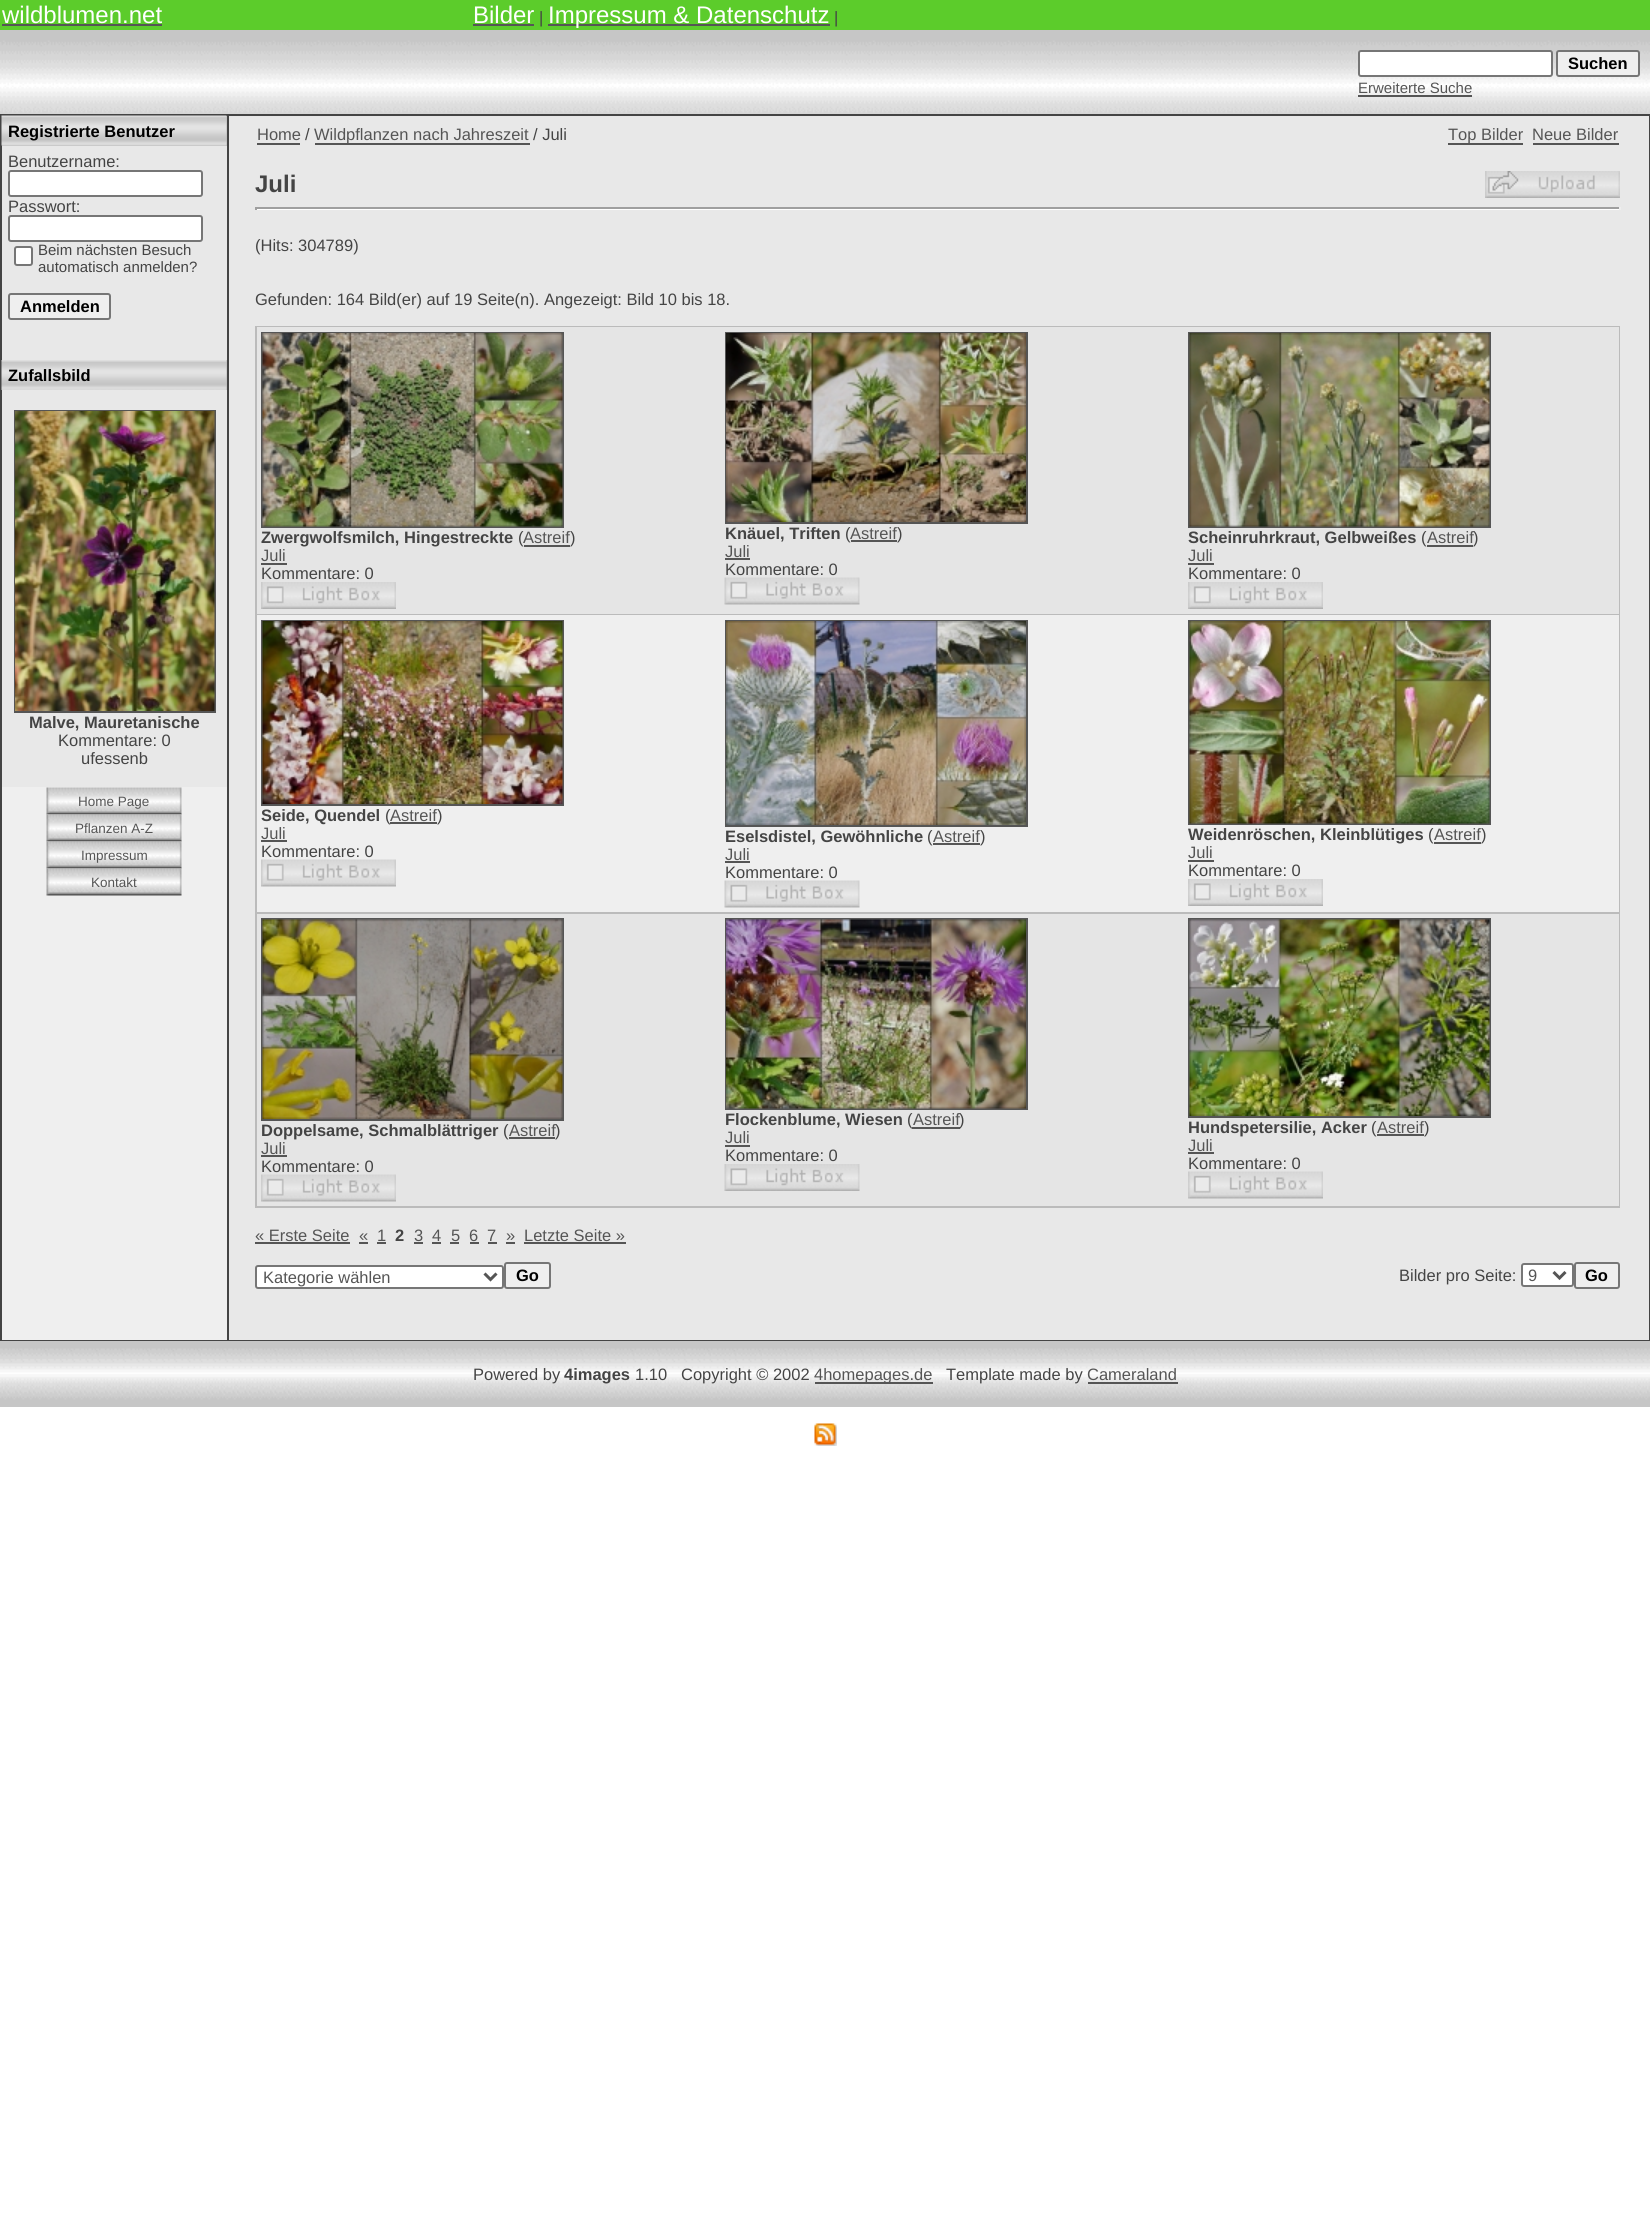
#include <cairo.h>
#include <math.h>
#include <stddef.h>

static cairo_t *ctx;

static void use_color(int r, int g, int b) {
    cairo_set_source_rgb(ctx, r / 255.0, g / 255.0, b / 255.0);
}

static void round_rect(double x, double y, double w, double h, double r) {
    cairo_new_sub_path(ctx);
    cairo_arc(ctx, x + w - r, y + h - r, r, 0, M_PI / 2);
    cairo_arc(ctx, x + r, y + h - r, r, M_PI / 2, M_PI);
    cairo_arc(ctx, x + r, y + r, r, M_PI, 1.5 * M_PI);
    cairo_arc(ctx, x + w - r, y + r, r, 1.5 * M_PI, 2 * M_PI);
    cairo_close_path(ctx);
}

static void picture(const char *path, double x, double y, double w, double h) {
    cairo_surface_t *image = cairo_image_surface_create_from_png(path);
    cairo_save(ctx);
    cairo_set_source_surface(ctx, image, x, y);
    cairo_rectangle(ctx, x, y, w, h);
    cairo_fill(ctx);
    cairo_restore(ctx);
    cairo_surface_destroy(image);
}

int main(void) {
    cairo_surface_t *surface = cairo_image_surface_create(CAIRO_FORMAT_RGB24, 1650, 2233);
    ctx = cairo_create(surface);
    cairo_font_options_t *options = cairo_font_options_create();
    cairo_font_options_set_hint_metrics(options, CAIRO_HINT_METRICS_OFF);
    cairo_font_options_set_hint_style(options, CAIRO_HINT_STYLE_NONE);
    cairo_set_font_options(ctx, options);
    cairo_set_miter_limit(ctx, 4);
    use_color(255, 255, 255);
    cairo_paint(ctx);
    use_color(92, 204, 43);
    cairo_rectangle(ctx, 0, 0, 1650, 30);
    cairo_fill(ctx);
    cairo_select_font_face(ctx, "Liberation Sans", CAIRO_FONT_SLANT_NORMAL, CAIRO_FONT_WEIGHT_NORMAL);
    cairo_set_font_size(ctx, 24);
    use_color(255, 255, 255);
    cairo_move_to(ctx, 2, 23);
    cairo_show_text(ctx, "wildblumen.net");
    use_color(85, 85, 85);
    cairo_rectangle(ctx, 2, 24, 160, 2);
    cairo_fill(ctx);
    use_color(255, 255, 255);
    cairo_move_to(ctx, 473, 23);
    cairo_show_text(ctx, "Bilder");
    use_color(85, 85, 85);
    cairo_rectangle(ctx, 473, 24, 61, 2);
    cairo_fill(ctx);
    cairo_set_font_size(ctx, 16.5);
    use_color(68, 68, 68);
    cairo_move_to(ctx, 539, 23);
    cairo_show_text(ctx, "|");
    use_color(85, 85, 85);
    cairo_rectangle(ctx, 548, 24, 282, 2);
    cairo_fill(ctx);
    cairo_set_font_size(ctx, 24);
    use_color(255, 255, 255);
    cairo_move_to(ctx, 548, 23);
    cairo_show_text(ctx, "Impressum & Datenschutz");
    cairo_set_font_size(ctx, 16.5);
    use_color(68, 68, 68);
    cairo_move_to(ctx, 834, 23);
    cairo_show_text(ctx, "|");
    picture("img1.png", 0, 30, 825, 84);
    picture("img2.png", 825, 30, 825, 84);
    use_color(255, 255, 255);
    round_rect(1359, 51, 193, 25, 2);
    cairo_fill_preserve(ctx);
    use_color(118, 118, 118);
    cairo_stroke(ctx);
    use_color(239, 239, 239);
    round_rect(1557, 51, 82, 25, 2);
    cairo_fill_preserve(ctx);
    use_color(118, 118, 118);
    cairo_stroke(ctx);
    cairo_select_font_face(ctx, "Liberation Sans", CAIRO_FONT_SLANT_NORMAL, CAIRO_FONT_WEIGHT_BOLD);
    use_color(0, 0, 0);
    cairo_move_to(ctx, 1568, 69);
    cairo_show_text(ctx, "Suchen");
    cairo_select_font_face(ctx, "Liberation Sans", CAIRO_FONT_SLANT_NORMAL, CAIRO_FONT_WEIGHT_NORMAL);
    cairo_set_font_size(ctx, 15);
    use_color(85, 85, 85);
    cairo_move_to(ctx, 1358, 93);
    cairo_show_text(ctx, "Erweiterte Suche");
    cairo_rectangle(ctx, 1358, 95, 114, 2);
    cairo_fill(ctx);
    use_color(68, 68, 68);
    cairo_rectangle(ctx, 0, 114, 1650, 1227);
    cairo_fill(ctx);
    use_color(232, 232, 232);
    cairo_rectangle(ctx, 229, 116, 1420, 1224);
    cairo_fill(ctx);
    use_color(239, 239, 239);
    cairo_rectangle(ctx, 2, 787, 225, 553);
    cairo_fill(ctx);
    use_color(187, 187, 187);
    cairo_rectangle(ctx, 2, 116, 225, 30);
    cairo_fill(ctx);
    picture("img3.png", 1, 115, 226, 31);
    cairo_select_font_face(ctx, "Liberation Sans", CAIRO_FONT_SLANT_NORMAL, CAIRO_FONT_WEIGHT_BOLD);
    cairo_set_font_size(ctx, 16.5);
    use_color(0, 0, 0);
    cairo_move_to(ctx, 8, 137);
    cairo_show_text(ctx, "Registrierte Benutzer");
    use_color(232, 232, 232);
    cairo_rectangle(ctx, 2, 146, 225, 214);
    cairo_fill(ctx);
    cairo_select_font_face(ctx, "Liberation Sans", CAIRO_FONT_SLANT_NORMAL, CAIRO_FONT_WEIGHT_NORMAL);
    use_color(68, 68, 68);
    cairo_move_to(ctx, 8, 167);
    cairo_show_text(ctx, "Benutzername:");
    use_color(255, 255, 255);
    round_rect(9, 171, 193, 25, 2);
    cairo_fill_preserve(ctx);
    use_color(118, 118, 118);
    cairo_stroke(ctx);
    use_color(68, 68, 68);
    cairo_move_to(ctx, 8, 212);
    cairo_show_text(ctx, "Passwort:");
    use_color(255, 255, 255);
    round_rect(9, 216, 193, 25, 2);
    cairo_fill_preserve(ctx);
    use_color(118, 118, 118);
    cairo_stroke(ctx);
    use_color(255, 255, 255);
    round_rect(15, 247, 17, 18, 2);
    cairo_fill_preserve(ctx);
    use_color(118, 118, 118);
    cairo_stroke(ctx);
    cairo_set_font_size(ctx, 15);
    use_color(68, 68, 68);
    cairo_move_to(ctx, 38, 255);
    cairo_show_text(ctx, "Beim nächsten Besuch");
    cairo_move_to(ctx, 38, 272);
    cairo_show_text(ctx, "automatisch anmelden?");
    use_color(239, 239, 239);
    round_rect(9, 294, 101, 25, 2);
    cairo_fill_preserve(ctx);
    use_color(118, 118, 118);
    cairo_stroke(ctx);
    cairo_select_font_face(ctx, "Liberation Sans", CAIRO_FONT_SLANT_NORMAL, CAIRO_FONT_WEIGHT_BOLD);
    cairo_set_font_size(ctx, 16.5);
    use_color(0, 0, 0);
    cairo_move_to(ctx, 20, 312);
    cairo_show_text(ctx, "Anmelden");
    use_color(187, 187, 187);
    cairo_rectangle(ctx, 226, 360, 1, 30);
    cairo_fill(ctx);
    picture("img4.png", 1, 360, 226, 30);
    use_color(0, 0, 0);
    cairo_move_to(ctx, 8, 381);
    cairo_show_text(ctx, "Zufallsbild");
    use_color(232, 232, 232);
    cairo_rectangle(ctx, 2, 390, 225, 397);
    cairo_fill(ctx);
    cairo_rectangle(ctx, 15, 411, 200, 301);
    use_color(85, 85, 85);
    cairo_stroke(ctx);
    picture("img5.png", 15, 411, 200, 300);
    use_color(68, 68, 68);
    cairo_move_to(ctx, 29, 728);
    cairo_show_text(ctx, "Malve, Mauretanische");
    cairo_select_font_face(ctx, "Liberation Sans", CAIRO_FONT_SLANT_NORMAL, CAIRO_FONT_WEIGHT_NORMAL);
    cairo_move_to(ctx, 58, 746);
    cairo_show_text(ctx, "Kommentare: 0");
    cairo_move_to(ctx, 81, 764);
    cairo_show_text(ctx, "ufessenb");
    picture("img6.png", 46, 787, 136, 28);
    cairo_set_font_size(ctx, 13.5);
    use_color(85, 85, 85);
    cairo_move_to(ctx, 78, 806);
    cairo_show_text(ctx, "Home Page");
    picture("img7.png", 46, 814, 136, 28);
    cairo_move_to(ctx, 75, 833);
    cairo_show_text(ctx, "Pflanzen A-Z");
    picture("img7.png", 46, 841, 136, 28);
    cairo_move_to(ctx, 81, 860);
    cairo_show_text(ctx, "Impressum");
    picture("img7.png", 46, 868, 136, 28);
    cairo_move_to(ctx, 91, 887);
    cairo_show_text(ctx, "Kontakt");
    cairo_set_font_size(ctx, 16.5);
    cairo_move_to(ctx, 257, 140);
    cairo_show_text(ctx, "Home");
    cairo_rectangle(ctx, 257, 143, 43, 2);
    cairo_fill(ctx);
    use_color(68, 68, 68);
    cairo_move_to(ctx, 305, 140);
    cairo_show_text(ctx, "/");
    use_color(85, 85, 85);
    cairo_rectangle(ctx, 315, 143, 215, 2);
    cairo_fill(ctx);
    cairo_move_to(ctx, 314, 140);
    cairo_show_text(ctx, "Wildpflanzen nach Jahreszeit");
    use_color(68, 68, 68);
    cairo_move_to(ctx, 533, 140);
    cairo_show_text(ctx, "/ Juli");
    use_color(85, 85, 85);
    cairo_rectangle(ctx, 1448, 143, 75, 2);
    cairo_fill(ctx);
    cairo_move_to(ctx, 1448, 140);
    cairo_show_text(ctx, "Top Bilder");
    cairo_move_to(ctx, 1532, 140);
    cairo_show_text(ctx, "Neue Bilder");
    cairo_rectangle(ctx, 1533, 143, 86, 2);
    cairo_fill(ctx);
    cairo_select_font_face(ctx, "Liberation Sans", CAIRO_FONT_SLANT_NORMAL, CAIRO_FONT_WEIGHT_BOLD);
    cairo_set_font_size(ctx, 24);
    use_color(68, 68, 68);
    cairo_move_to(ctx, 255, 192);
    cairo_show_text(ctx, "Juli");
    picture("img8.png", 1485, 171, 135, 27);
    use_color(255, 255, 255);
    cairo_rectangle(ctx, 255, 209, 1365, 1);
    cairo_fill(ctx);
    use_color(159, 159, 159);
    cairo_rectangle(ctx, 255, 207, 1365, 2);
    cairo_fill(ctx);
    use_color(238, 238, 238);
    cairo_rectangle(ctx, 1619, 207, 2, 3);
    cairo_fill(ctx);
    use_color(159, 159, 159);
    cairo_rectangle(ctx, 255, 207, 2, 3);
    cairo_fill(ctx);
    cairo_select_font_face(ctx, "Liberation Sans", CAIRO_FONT_SLANT_NORMAL, CAIRO_FONT_WEIGHT_NORMAL);
    cairo_set_font_size(ctx, 16.5);
    use_color(68, 68, 68);
    cairo_move_to(ctx, 255, 251);
    cairo_show_text(ctx, "(Hits: 304789)");
    cairo_move_to(ctx, 255, 305);
    cairo_show_text(ctx, "Gefunden: 164 Bild(er) auf 19 Seite(n). Angezeigt: Bild 10 bis 18.");
    use_color(187, 187, 187);
    cairo_rectangle(ctx, 255, 326, 1365, 882);
    cairo_fill(ctx);
    use_color(229, 229, 229);
    cairo_rectangle(ctx, 257, 327, 1362, 287);
    cairo_fill(ctx);
    cairo_rectangle(ctx, 262, 333, 301, 194);
    use_color(85, 85, 85);
    cairo_stroke(ctx);
    picture("img9.png", 262, 333, 301, 194);
    cairo_select_font_face(ctx, "Liberation Sans", CAIRO_FONT_SLANT_NORMAL, CAIRO_FONT_WEIGHT_BOLD);
    use_color(68, 68, 68);
    cairo_move_to(ctx, 261, 543);
    cairo_show_text(ctx, "Zwergwolfsmilch, Hingestreckte");
    cairo_select_font_face(ctx, "Liberation Sans", CAIRO_FONT_SLANT_NORMAL, CAIRO_FONT_WEIGHT_NORMAL);
    cairo_move_to(ctx, 518, 543);
    cairo_show_text(ctx, "(");
    use_color(85, 85, 85);
    cairo_move_to(ctx, 523, 543);
    cairo_show_text(ctx, "Astreif");
    cairo_rectangle(ctx, 524, 545, 46, 2);
    cairo_fill(ctx);
    use_color(68, 68, 68);
    cairo_move_to(ctx, 570, 543);
    cairo_show_text(ctx, ")");
    use_color(85, 85, 85);
    cairo_move_to(ctx, 261, 561);
    cairo_show_text(ctx, "Juli");
    cairo_rectangle(ctx, 261, 563, 26, 2);
    cairo_fill(ctx);
    use_color(68, 68, 68);
    cairo_move_to(ctx, 261, 579);
    cairo_show_text(ctx, "Kommentare: 0");
    picture("img10.png", 261, 582, 135, 27);
    cairo_rectangle(ctx, 726, 333, 301, 190);
    use_color(85, 85, 85);
    cairo_stroke(ctx);
    picture("img11.png", 726, 333, 300, 189);
    cairo_select_font_face(ctx, "Liberation Sans", CAIRO_FONT_SLANT_NORMAL, CAIRO_FONT_WEIGHT_BOLD);
    use_color(68, 68, 68);
    cairo_move_to(ctx, 725, 539);
    cairo_show_text(ctx, "Knäuel, Triften");
    cairo_select_font_face(ctx, "Liberation Sans", CAIRO_FONT_SLANT_NORMAL, CAIRO_FONT_WEIGHT_NORMAL);
    cairo_move_to(ctx, 845, 539);
    cairo_show_text(ctx, "(");
    use_color(85, 85, 85);
    cairo_move_to(ctx, 850, 539);
    cairo_show_text(ctx, "Astreif");
    cairo_rectangle(ctx, 851, 540, 46, 2);
    cairo_fill(ctx);
    use_color(68, 68, 68);
    cairo_move_to(ctx, 897, 539);
    cairo_show_text(ctx, ")");
    use_color(85, 85, 85);
    cairo_move_to(ctx, 725, 557);
    cairo_show_text(ctx, "Juli");
    cairo_rectangle(ctx, 725, 558, 25, 2);
    cairo_fill(ctx);
    use_color(68, 68, 68);
    cairo_move_to(ctx, 725, 575);
    cairo_show_text(ctx, "Kommentare: 0");
    picture("img12.png", 724, 577, 136, 28);
    cairo_rectangle(ctx, 1189, 333, 301, 194);
    use_color(85, 85, 85);
    cairo_stroke(ctx);
    picture("img13.png", 1189, 333, 301, 194);
    cairo_select_font_face(ctx, "Liberation Sans", CAIRO_FONT_SLANT_NORMAL, CAIRO_FONT_WEIGHT_BOLD);
    use_color(68, 68, 68);
    cairo_move_to(ctx, 1188, 543);
    cairo_show_text(ctx, "Scheinruhrkraut, Gelbweißes");
    cairo_select_font_face(ctx, "Liberation Sans", CAIRO_FONT_SLANT_NORMAL, CAIRO_FONT_WEIGHT_NORMAL);
    cairo_move_to(ctx, 1421, 543);
    cairo_show_text(ctx, "(");
    use_color(85, 85, 85);
    cairo_move_to(ctx, 1427, 543);
    cairo_show_text(ctx, "Astreif");
    cairo_rectangle(ctx, 1427, 545, 46, 2);
    cairo_fill(ctx);
    use_color(68, 68, 68);
    cairo_move_to(ctx, 1473, 543);
    cairo_show_text(ctx, ")");
    use_color(85, 85, 85);
    cairo_move_to(ctx, 1188, 561);
    cairo_show_text(ctx, "Juli");
    cairo_rectangle(ctx, 1188, 563, 26, 2);
    cairo_fill(ctx);
    use_color(68, 68, 68);
    cairo_move_to(ctx, 1188, 579);
    cairo_show_text(ctx, "Kommentare: 0");
    picture("img14.png", 1188, 582, 135, 27);
    use_color(239, 239, 239);
    cairo_rectangle(ctx, 257, 615, 1362, 297);
    cairo_fill(ctx);
    cairo_rectangle(ctx, 262, 621, 301, 184);
    use_color(85, 85, 85);
    cairo_stroke(ctx);
    picture("img15.png", 262, 621, 301, 183);
    cairo_select_font_face(ctx, "Liberation Sans", CAIRO_FONT_SLANT_NORMAL, CAIRO_FONT_WEIGHT_BOLD);
    use_color(68, 68, 68);
    cairo_move_to(ctx, 261, 821);
    cairo_show_text(ctx, "Seide, Quendel");
    cairo_select_font_face(ctx, "Liberation Sans", CAIRO_FONT_SLANT_NORMAL, CAIRO_FONT_WEIGHT_NORMAL);
    cairo_move_to(ctx, 385, 821);
    cairo_show_text(ctx, "(");
    use_color(85, 85, 85);
    cairo_move_to(ctx, 390, 821);
    cairo_show_text(ctx, "Astreif");
    cairo_rectangle(ctx, 390, 822, 47, 2);
    cairo_fill(ctx);
    use_color(68, 68, 68);
    cairo_move_to(ctx, 437, 821);
    cairo_show_text(ctx, ")");
    use_color(85, 85, 85);
    cairo_move_to(ctx, 261, 839);
    cairo_show_text(ctx, "Juli");
    cairo_rectangle(ctx, 261, 840, 26, 2);
    cairo_fill(ctx);
    use_color(68, 68, 68);
    cairo_move_to(ctx, 261, 857);
    cairo_show_text(ctx, "Kommentare: 0");
    picture("img16.png", 261, 859, 135, 28);
    cairo_rectangle(ctx, 726, 621, 301, 205);
    use_color(85, 85, 85);
    cairo_stroke(ctx);
    picture("img17.png", 726, 621, 300, 204);
    cairo_select_font_face(ctx, "Liberation Sans", CAIRO_FONT_SLANT_NORMAL, CAIRO_FONT_WEIGHT_BOLD);
    use_color(68, 68, 68);
    cairo_move_to(ctx, 725, 842);
    cairo_show_text(ctx, "Eselsdistel, Gewöhnliche");
    cairo_select_font_face(ctx, "Liberation Sans", CAIRO_FONT_SLANT_NORMAL, CAIRO_FONT_WEIGHT_NORMAL);
    cairo_move_to(ctx, 927, 842);
    cairo_show_text(ctx, "(");
    use_color(85, 85, 85);
    cairo_move_to(ctx, 933, 842);
    cairo_show_text(ctx, "Astreif");
    cairo_rectangle(ctx, 933, 843, 47, 2);
    cairo_fill(ctx);
    use_color(68, 68, 68);
    cairo_move_to(ctx, 980, 842);
    cairo_show_text(ctx, ")");
    use_color(85, 85, 85);
    cairo_move_to(ctx, 725, 860);
    cairo_show_text(ctx, "Juli");
    cairo_rectangle(ctx, 725, 861, 25, 2);
    cairo_fill(ctx);
    use_color(68, 68, 68);
    cairo_move_to(ctx, 725, 878);
    cairo_show_text(ctx, "Kommentare: 0");
    picture("img18.png", 724, 880, 136, 28);
    cairo_rectangle(ctx, 1189, 621, 301, 203);
    use_color(85, 85, 85);
    cairo_stroke(ctx);
    picture("img19.png", 1189, 621, 301, 203);
    cairo_select_font_face(ctx, "Liberation Sans", CAIRO_FONT_SLANT_NORMAL, CAIRO_FONT_WEIGHT_BOLD);
    use_color(68, 68, 68);
    cairo_move_to(ctx, 1188, 840);
    cairo_show_text(ctx, "Weidenröschen, Kleinblütiges");
    cairo_select_font_face(ctx, "Liberation Sans", CAIRO_FONT_SLANT_NORMAL, CAIRO_FONT_WEIGHT_NORMAL);
    cairo_move_to(ctx, 1428, 840);
    cairo_show_text(ctx, "(");
    use_color(85, 85, 85);
    cairo_move_to(ctx, 1434, 840);
    cairo_show_text(ctx, "Astreif");
    cairo_rectangle(ctx, 1434, 842, 47, 2);
    cairo_fill(ctx);
    use_color(68, 68, 68);
    cairo_move_to(ctx, 1481, 840);
    cairo_show_text(ctx, ")");
    use_color(85, 85, 85);
    cairo_move_to(ctx, 1188, 858);
    cairo_show_text(ctx, "Juli");
    cairo_rectangle(ctx, 1188, 860, 26, 2);
    cairo_fill(ctx);
    use_color(68, 68, 68);
    cairo_move_to(ctx, 1188, 876);
    cairo_show_text(ctx, "Kommentare: 0");
    picture("img14.png", 1188, 879, 135, 27);
    use_color(229, 229, 229);
    cairo_rectangle(ctx, 257, 914, 1362, 292);
    cairo_fill(ctx);
    cairo_rectangle(ctx, 262, 919, 301, 201);
    use_color(85, 85, 85);
    cairo_stroke(ctx);
    picture("img20.png", 262, 919, 301, 200);
    cairo_select_font_face(ctx, "Liberation Sans", CAIRO_FONT_SLANT_NORMAL, CAIRO_FONT_WEIGHT_BOLD);
    use_color(68, 68, 68);
    cairo_move_to(ctx, 261, 1136);
    cairo_show_text(ctx, "Doppelsame, Schmalblättriger");
    cairo_select_font_face(ctx, "Liberation Sans", CAIRO_FONT_SLANT_NORMAL, CAIRO_FONT_WEIGHT_NORMAL);
    cairo_move_to(ctx, 503, 1136);
    cairo_show_text(ctx, "(");
    use_color(85, 85, 85);
    cairo_move_to(ctx, 509, 1136);
    cairo_show_text(ctx, "Astreif");
    cairo_rectangle(ctx, 509, 1137, 46, 2);
    cairo_fill(ctx);
    use_color(68, 68, 68);
    cairo_move_to(ctx, 555, 1136);
    cairo_show_text(ctx, ")");
    use_color(85, 85, 85);
    cairo_move_to(ctx, 261, 1154);
    cairo_show_text(ctx, "Juli");
    cairo_rectangle(ctx, 261, 1155, 26, 2);
    cairo_fill(ctx);
    use_color(68, 68, 68);
    cairo_move_to(ctx, 261, 1172);
    cairo_show_text(ctx, "Kommentare: 0");
    picture("img21.png", 261, 1174, 135, 28);
    cairo_rectangle(ctx, 726, 919, 301, 190);
    use_color(85, 85, 85);
    cairo_stroke(ctx);
    picture("img22.png", 726, 919, 300, 190);
    cairo_select_font_face(ctx, "Liberation Sans", CAIRO_FONT_SLANT_NORMAL, CAIRO_FONT_WEIGHT_BOLD);
    use_color(68, 68, 68);
    cairo_move_to(ctx, 725, 1125);
    cairo_show_text(ctx, "Flockenblume, Wiesen");
    cairo_select_font_face(ctx, "Liberation Sans", CAIRO_FONT_SLANT_NORMAL, CAIRO_FONT_WEIGHT_NORMAL);
    cairo_move_to(ctx, 907, 1125);
    cairo_show_text(ctx, "(");
    use_color(85, 85, 85);
    cairo_move_to(ctx, 913, 1125);
    cairo_show_text(ctx, "Astreif");
    cairo_rectangle(ctx, 912, 1127, 48, 2);
    cairo_fill(ctx);
    use_color(68, 68, 68);
    cairo_move_to(ctx, 959, 1125);
    cairo_show_text(ctx, ")");
    use_color(85, 85, 85);
    cairo_move_to(ctx, 725, 1143);
    cairo_show_text(ctx, "Juli");
    cairo_rectangle(ctx, 725, 1145, 25, 2);
    cairo_fill(ctx);
    use_color(68, 68, 68);
    cairo_move_to(ctx, 725, 1161);
    cairo_show_text(ctx, "Kommentare: 0");
    picture("img23.png", 724, 1164, 136, 27);
    cairo_rectangle(ctx, 1189, 919, 301, 198);
    use_color(85, 85, 85);
    cairo_stroke(ctx);
    picture("img24.png", 1189, 919, 301, 197);
    cairo_select_font_face(ctx, "Liberation Sans", CAIRO_FONT_SLANT_NORMAL, CAIRO_FONT_WEIGHT_BOLD);
    use_color(68, 68, 68);
    cairo_move_to(ctx, 1188, 1133);
    cairo_show_text(ctx, "Hundspetersilie, Acker");
    cairo_select_font_face(ctx, "Liberation Sans", CAIRO_FONT_SLANT_NORMAL, CAIRO_FONT_WEIGHT_NORMAL);
    cairo_move_to(ctx, 1371, 1133);
    cairo_show_text(ctx, "(");
    use_color(85, 85, 85);
    cairo_move_to(ctx, 1377, 1133);
    cairo_show_text(ctx, "Astreif");
    cairo_rectangle(ctx, 1377, 1134, 47, 2);
    cairo_fill(ctx);
    use_color(68, 68, 68);
    cairo_move_to(ctx, 1424, 1133);
    cairo_show_text(ctx, ")");
    use_color(85, 85, 85);
    cairo_move_to(ctx, 1188, 1151);
    cairo_show_text(ctx, "Juli");
    cairo_rectangle(ctx, 1188, 1152, 26, 2);
    cairo_fill(ctx);
    use_color(68, 68, 68);
    cairo_move_to(ctx, 1188, 1169);
    cairo_show_text(ctx, "Kommentare: 0");
    picture("img25.png", 1188, 1171, 135, 28);
    use_color(85, 85, 85);
    cairo_move_to(ctx, 255, 1241);
    cairo_show_text(ctx, "« Erste Seite");
    cairo_rectangle(ctx, 255, 1242, 95, 2);
    cairo_fill(ctx);
    cairo_move_to(ctx, 359, 1241);
    cairo_show_text(ctx, "«");
    cairo_rectangle(ctx, 359, 1242, 9, 2);
    cairo_fill(ctx);
    cairo_move_to(ctx, 377, 1241);
    cairo_show_text(ctx, "1");
    cairo_rectangle(ctx, 377, 1242, 9, 2);
    cairo_fill(ctx);
    cairo_select_font_face(ctx, "Liberation Sans", CAIRO_FONT_SLANT_NORMAL, CAIRO_FONT_WEIGHT_BOLD);
    use_color(68, 68, 68);
    cairo_move_to(ctx, 395, 1241);
    cairo_show_text(ctx, "2");
    cairo_select_font_face(ctx, "Liberation Sans", CAIRO_FONT_SLANT_NORMAL, CAIRO_FONT_WEIGHT_NORMAL);
    use_color(85, 85, 85);
    cairo_move_to(ctx, 414, 1241);
    cairo_show_text(ctx, "3");
    cairo_rectangle(ctx, 414, 1242, 9, 2);
    cairo_fill(ctx);
    cairo_move_to(ctx, 432, 1241);
    cairo_show_text(ctx, "4");
    cairo_rectangle(ctx, 432, 1242, 9, 2);
    cairo_fill(ctx);
    cairo_move_to(ctx, 451, 1241);
    cairo_show_text(ctx, "5");
    cairo_rectangle(ctx, 450, 1242, 9, 2);
    cairo_fill(ctx);
    cairo_move_to(ctx, 469, 1241);
    cairo_show_text(ctx, "6");
    cairo_rectangle(ctx, 470, 1242, 9, 2);
    cairo_fill(ctx);
    cairo_move_to(ctx, 487, 1241);
    cairo_show_text(ctx, "7");
    cairo_rectangle(ctx, 488, 1242, 9, 2);
    cairo_fill(ctx);
    cairo_move_to(ctx, 506, 1241);
    cairo_show_text(ctx, "»");
    cairo_rectangle(ctx, 506, 1242, 9, 2);
    cairo_fill(ctx);
    cairo_move_to(ctx, 524, 1241);
    cairo_show_text(ctx, "Letzte Seite »");
    cairo_rectangle(ctx, 524, 1242, 102, 2);
    cairo_fill(ctx);
    use_color(255, 255, 255);
    round_rect(256, 1266, 247, 22, 2);
    cairo_fill_preserve(ctx);
    use_color(118, 118, 118);
    cairo_stroke(ctx);
    cairo_new_path(ctx);
    cairo_move_to(ctx, 484.5, 1273.5);
    cairo_line_to(ctx, 490.5, 1279.5);
    cairo_line_to(ctx, 496.5, 1273.5);
    use_color(85, 85, 85);
    cairo_set_line_width(ctx, 3);
    cairo_stroke(ctx);
    cairo_move_to(ctx, 263, 1283);
    cairo_show_text(ctx, "Kategorie wählen");
    use_color(239, 239, 239);
    round_rect(505, 1263, 45, 25, 2);
    cairo_fill_preserve(ctx);
    use_color(118, 118, 118);
    cairo_set_line_width(ctx, 2);
    cairo_stroke(ctx);
    cairo_select_font_face(ctx, "Liberation Sans", CAIRO_FONT_SLANT_NORMAL, CAIRO_FONT_WEIGHT_BOLD);
    use_color(0, 0, 0);
    cairo_move_to(ctx, 516, 1281);
    cairo_show_text(ctx, "Go");
    cairo_select_font_face(ctx, "Liberation Sans", CAIRO_FONT_SLANT_NORMAL, CAIRO_FONT_WEIGHT_NORMAL);
    use_color(68, 68, 68);
    cairo_move_to(ctx, 1399, 1281);
    cairo_show_text(ctx, "Bilder pro Seite:");
    use_color(255, 255, 255);
    round_rect(1522, 1264, 51, 22, 2);
    cairo_fill_preserve(ctx);
    use_color(118, 118, 118);
    cairo_stroke(ctx);
    cairo_new_path(ctx);
    cairo_move_to(ctx, 1553.5, 1272);
    cairo_line_to(ctx, 1559.5, 1278);
    cairo_line_to(ctx, 1565.5, 1272);
    use_color(85, 85, 85);
    cairo_set_line_width(ctx, 3);
    cairo_stroke(ctx);
    cairo_move_to(ctx, 1528, 1281);
    cairo_show_text(ctx, "9");
    use_color(239, 239, 239);
    round_rect(1575, 1263, 44, 25, 2);
    cairo_fill_preserve(ctx);
    use_color(118, 118, 118);
    cairo_set_line_width(ctx, 2);
    cairo_stroke(ctx);
    cairo_select_font_face(ctx, "Liberation Sans", CAIRO_FONT_SLANT_NORMAL, CAIRO_FONT_WEIGHT_BOLD);
    use_color(0, 0, 0);
    cairo_move_to(ctx, 1585, 1281);
    cairo_show_text(ctx, "Go");
    picture("img26.png", 0, 1341, 1650, 66);
    cairo_select_font_face(ctx, "Liberation Sans", CAIRO_FONT_SLANT_NORMAL, CAIRO_FONT_WEIGHT_NORMAL);
    use_color(68, 68, 68);
    cairo_move_to(ctx, 473, 1380);
    cairo_show_text(ctx, "Powered by");
    cairo_select_font_face(ctx, "Liberation Sans", CAIRO_FONT_SLANT_NORMAL, CAIRO_FONT_WEIGHT_BOLD);
    cairo_move_to(ctx, 564, 1380);
    cairo_show_text(ctx, "4images");
    cairo_select_font_face(ctx, "Liberation Sans", CAIRO_FONT_SLANT_NORMAL, CAIRO_FONT_WEIGHT_NORMAL);
    cairo_move_to(ctx, 635, 1380);
    cairo_show_text(ctx, "1.10");
    cairo_move_to(ctx, 681, 1380);
    cairo_show_text(ctx, "Copyright © 2002");
    use_color(85, 85, 85);
    cairo_rectangle(ctx, 815, 1382, 118, 2);
    cairo_fill(ctx);
    cairo_move_to(ctx, 814, 1380);
    cairo_show_text(ctx, "4homepages.de");
    use_color(68, 68, 68);
    cairo_move_to(ctx, 946, 1380);
    cairo_show_text(ctx, "Template made by");
    use_color(85, 85, 85);
    cairo_move_to(ctx, 1087, 1380);
    cairo_show_text(ctx, "Cameraland");
    cairo_rectangle(ctx, 1088, 1382, 90, 2);
    cairo_fill(ctx);
    picture("img27.png", 814, 1423, 23, 23);
    cairo_surface_write_to_png(surface, "result.png");
    cairo_font_options_destroy(options);
    cairo_destroy(ctx);
    cairo_surface_destroy(surface);
    return 0;
}
